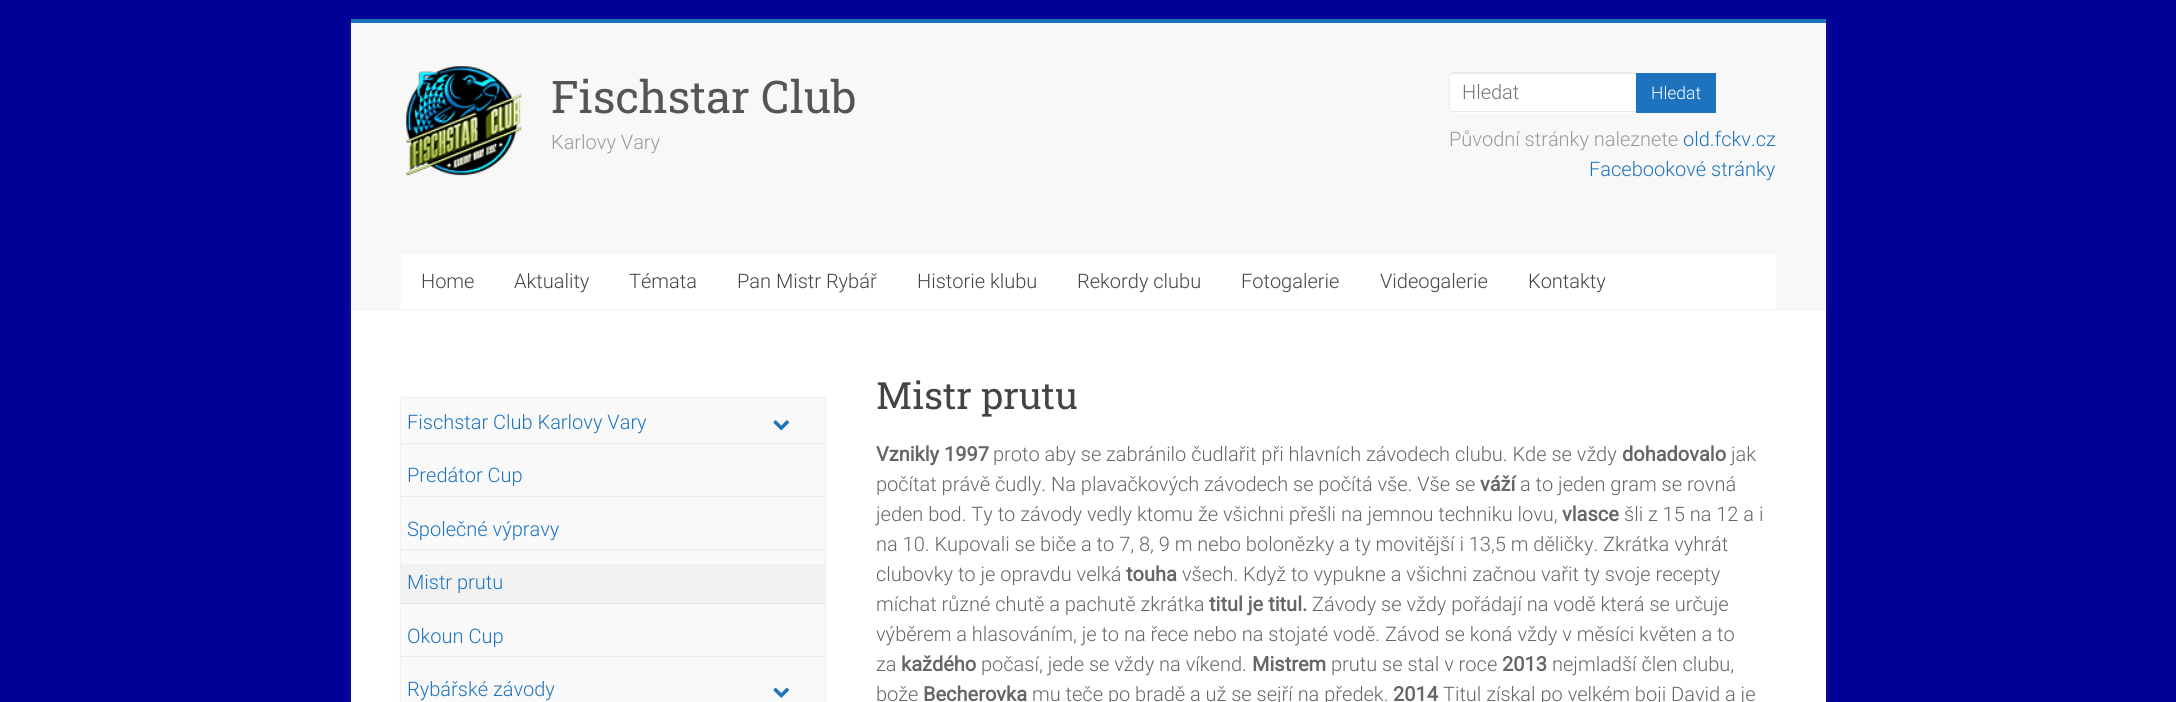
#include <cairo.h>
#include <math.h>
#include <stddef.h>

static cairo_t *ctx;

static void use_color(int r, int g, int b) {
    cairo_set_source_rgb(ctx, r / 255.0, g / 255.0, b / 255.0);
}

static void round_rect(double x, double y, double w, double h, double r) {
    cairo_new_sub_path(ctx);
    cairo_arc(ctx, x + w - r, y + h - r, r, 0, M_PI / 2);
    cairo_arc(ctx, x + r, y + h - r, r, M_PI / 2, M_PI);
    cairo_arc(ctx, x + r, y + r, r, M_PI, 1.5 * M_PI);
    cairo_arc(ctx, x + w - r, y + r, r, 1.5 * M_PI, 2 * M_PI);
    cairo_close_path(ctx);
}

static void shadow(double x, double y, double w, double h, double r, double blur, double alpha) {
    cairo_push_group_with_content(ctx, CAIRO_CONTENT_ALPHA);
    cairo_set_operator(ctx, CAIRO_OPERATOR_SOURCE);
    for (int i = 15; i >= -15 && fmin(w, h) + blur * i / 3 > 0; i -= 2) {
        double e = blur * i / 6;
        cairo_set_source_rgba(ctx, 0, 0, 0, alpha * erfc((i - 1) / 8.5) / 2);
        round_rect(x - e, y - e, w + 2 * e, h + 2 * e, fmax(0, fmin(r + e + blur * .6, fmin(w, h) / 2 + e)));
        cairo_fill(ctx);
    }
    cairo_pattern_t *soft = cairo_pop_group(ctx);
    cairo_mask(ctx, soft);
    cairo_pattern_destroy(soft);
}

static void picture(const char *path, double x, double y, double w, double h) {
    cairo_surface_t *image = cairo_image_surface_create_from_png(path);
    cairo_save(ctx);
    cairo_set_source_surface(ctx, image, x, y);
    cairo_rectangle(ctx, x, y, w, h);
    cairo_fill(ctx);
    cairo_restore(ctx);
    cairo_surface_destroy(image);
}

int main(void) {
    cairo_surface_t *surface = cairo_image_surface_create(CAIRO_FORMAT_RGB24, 2176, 702);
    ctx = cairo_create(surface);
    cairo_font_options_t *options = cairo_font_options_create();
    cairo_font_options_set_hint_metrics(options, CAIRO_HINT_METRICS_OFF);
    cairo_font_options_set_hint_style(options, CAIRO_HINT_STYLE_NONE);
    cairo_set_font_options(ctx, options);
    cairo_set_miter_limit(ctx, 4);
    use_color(0, 0, 153);
    cairo_paint(ctx);
    use_color(100, 100, 100);
    shadow(351, 21, 1475, 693, 0, 4, 0.3);
    use_color(255, 255, 255);
    cairo_rectangle(ctx, 351, 310, 1475, 392);
    cairo_fill(ctx);
    use_color(30, 115, 190);
    cairo_rectangle(ctx, 351, 19, 1475, 4);
    cairo_fill(ctx);
    use_color(248, 248, 248);
    cairo_rectangle(ctx, 351, 23, 1475, 286);
    cairo_fill(ctx);
    use_color(242, 242, 242);
    cairo_rectangle(ctx, 351, 309, 1475, 1);
    cairo_fill(ctx);
    picture("img1.png", 406, 66, 116, 110);
    cairo_select_font_face(ctx, "Roboto Slab", CAIRO_FONT_SLANT_NORMAL, CAIRO_FONT_WEIGHT_NORMAL);
    cairo_set_font_size(ctx, 45);
    use_color(85, 85, 85);
    cairo_move_to(ctx, 551, 113);
    cairo_show_text(ctx, "Fischstar Club");
    cairo_select_font_face(ctx, "Roboto Light", CAIRO_FONT_SLANT_NORMAL, CAIRO_FONT_WEIGHT_NORMAL);
    cairo_set_font_size(ctx, 20);
    use_color(153, 153, 153);
    cairo_move_to(ctx, 551, 149);
    cairo_show_text(ctx, "Karlovy Vary");
    use_color(255, 255, 255);
    cairo_new_path(ctx);
    cairo_move_to(ctx, 1453, 73);
    cairo_line_to(ctx, 1636, 73);
    cairo_line_to(ctx, 1636, 113);
    cairo_line_to(ctx, 1453, 113);
    cairo_curve_to(ctx, 1451, 113, 1449, 111, 1449, 109);
    cairo_line_to(ctx, 1449, 77);
    cairo_curve_to(ctx, 1449, 75, 1451, 73, 1453, 73);
    cairo_close_path(ctx);
    cairo_fill(ctx);
    use_color(234, 234, 234);
    cairo_set_fill_rule(ctx, CAIRO_FILL_RULE_EVEN_ODD);
    cairo_new_path(ctx);
    cairo_move_to(ctx, 1452, 72);
    cairo_line_to(ctx, 1636, 72);
    cairo_line_to(ctx, 1636, 112);
    cairo_line_to(ctx, 1452, 112);
    cairo_curve_to(ctx, 1450, 112, 1449, 111, 1449, 109);
    cairo_line_to(ctx, 1449, 76);
    cairo_curve_to(ctx, 1449, 74, 1450, 72, 1452, 72);
    cairo_close_path(ctx);
    cairo_move_to(ctx, 1452, 74);
    cairo_line_to(ctx, 1636, 74);
    cairo_line_to(ctx, 1636, 111);
    cairo_line_to(ctx, 1452, 111);
    cairo_curve_to(ctx, 1451, 111, 1450, 110, 1450, 109);
    cairo_line_to(ctx, 1450, 76);
    cairo_curve_to(ctx, 1450, 75, 1451, 74, 1452, 74);
    cairo_close_path(ctx);
    cairo_fill(ctx);
    use_color(117, 117, 117);
    cairo_move_to(ctx, 1462, 99);
    cairo_show_text(ctx, "Hledat");
    use_color(30, 115, 190);
    cairo_rectangle(ctx, 1636, 73, 80, 40);
    cairo_fill(ctx);
    cairo_set_font_size(ctx, 17.5);
    use_color(255, 255, 255);
    cairo_move_to(ctx, 1651, 99);
    cairo_show_text(ctx, "Hledat");
    cairo_set_font_size(ctx, 20);
    use_color(153, 153, 153);
    cairo_move_to(ctx, 1449, 146);
    cairo_show_text(ctx, "Původní stránky naleznete");
    use_color(30, 115, 190);
    cairo_move_to(ctx, 1683, 146);
    cairo_show_text(ctx, "old.fckv.cz");
    cairo_move_to(ctx, 1589, 176);
    cairo_show_text(ctx, "Facebookové stránky");
    use_color(255, 255, 255);
    cairo_rectangle(ctx, 401, 254, 1375, 55);
    cairo_fill(ctx);
    use_color(68, 68, 68);
    cairo_move_to(ctx, 421, 288);
    cairo_show_text(ctx, "Home");
    cairo_move_to(ctx, 514, 288);
    cairo_show_text(ctx, "Aktuality");
    cairo_move_to(ctx, 629, 288);
    cairo_show_text(ctx, "Témata");
    cairo_move_to(ctx, 737, 288);
    cairo_show_text(ctx, "Pan Mistr Rybář");
    cairo_move_to(ctx, 917, 288);
    cairo_show_text(ctx, "Historie klubu");
    cairo_move_to(ctx, 1077, 288);
    cairo_show_text(ctx, "Rekordy clubu");
    cairo_move_to(ctx, 1241, 288);
    cairo_show_text(ctx, "Fotogalerie");
    cairo_move_to(ctx, 1380, 288);
    cairo_show_text(ctx, "Videogalerie");
    cairo_move_to(ctx, 1528, 288);
    cairo_show_text(ctx, "Kontakty");
    use_color(0, 0, 0);
    shadow(401, 398, 424, 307, 0, 1, 0.17);
    use_color(249, 249, 249);
    cairo_rectangle(ctx, 401, 398, 424, 304);
    cairo_fill(ctx);
    use_color(237, 237, 237);
    cairo_rectangle(ctx, 401, 443, 424, 1);
    cairo_fill(ctx);
    use_color(30, 115, 190);
    cairo_move_to(ctx, 407, 429);
    cairo_show_text(ctx, "Fischstar Club Karlovy Vary");
    picture("img2.png", 773, 420, 17, 11);
    use_color(237, 237, 237);
    cairo_rectangle(ctx, 401, 496, 424, 1);
    cairo_fill(ctx);
    use_color(30, 115, 190);
    cairo_move_to(ctx, 407, 482);
    cairo_show_text(ctx, "Predátor Cup");
    use_color(237, 237, 237);
    cairo_rectangle(ctx, 401, 549, 424, 1);
    cairo_fill(ctx);
    use_color(30, 115, 190);
    cairo_move_to(ctx, 407, 536);
    cairo_show_text(ctx, "Společné výpravy");
    use_color(242, 242, 242);
    cairo_rectangle(ctx, 401, 564, 424, 39);
    cairo_fill(ctx);
    use_color(230, 230, 230);
    cairo_rectangle(ctx, 401, 603, 424, 1);
    cairo_fill(ctx);
    use_color(30, 115, 190);
    cairo_move_to(ctx, 407, 589);
    cairo_show_text(ctx, "Mistr prutu");
    use_color(237, 237, 237);
    cairo_rectangle(ctx, 401, 656, 424, 1);
    cairo_fill(ctx);
    use_color(30, 115, 190);
    cairo_move_to(ctx, 407, 643);
    cairo_show_text(ctx, "Okoun Cup");
    cairo_move_to(ctx, 407, 696);
    cairo_show_text(ctx, "Rybářské závody");
    picture("img3.png", 773, 687, 17, 11);
    cairo_select_font_face(ctx, "Roboto Slab", CAIRO_FONT_SLANT_NORMAL, CAIRO_FONT_WEIGHT_NORMAL);
    cairo_set_font_size(ctx, 37.5);
    use_color(68, 68, 68);
    cairo_move_to(ctx, 876, 409);
    cairo_show_text(ctx, "Mistr prutu");
    cairo_select_font_face(ctx, "Roboto", CAIRO_FONT_SLANT_NORMAL, CAIRO_FONT_WEIGHT_BOLD);
    cairo_set_font_size(ctx, 20);
    use_color(102, 102, 102);
    cairo_move_to(ctx, 876, 461);
    cairo_show_text(ctx, "Vznikly 1997");
    cairo_select_font_face(ctx, "Roboto Light", CAIRO_FONT_SLANT_NORMAL, CAIRO_FONT_WEIGHT_NORMAL);
    cairo_move_to(ctx, 993, 461);
    cairo_show_text(ctx, "proto aby se zabránilo čudlařit při hlavních závodech clubu. Kde se vždy");
    cairo_select_font_face(ctx, "Roboto", CAIRO_FONT_SLANT_NORMAL, CAIRO_FONT_WEIGHT_BOLD);
    cairo_move_to(ctx, 1622, 461);
    cairo_show_text(ctx, "dohadovalo");
    cairo_select_font_face(ctx, "Roboto Light", CAIRO_FONT_SLANT_NORMAL, CAIRO_FONT_WEIGHT_NORMAL);
    cairo_move_to(ctx, 1731, 461);
    cairo_show_text(ctx, "jak");
    cairo_move_to(ctx, 876, 491);
    cairo_show_text(ctx, "počítat právě čudly. Na plavačkových závodech se počítá vše. Vše se");
    cairo_select_font_face(ctx, "Roboto", CAIRO_FONT_SLANT_NORMAL, CAIRO_FONT_WEIGHT_BOLD);
    cairo_move_to(ctx, 1480, 491);
    cairo_show_text(ctx, "váží");
    cairo_select_font_face(ctx, "Roboto Light", CAIRO_FONT_SLANT_NORMAL, CAIRO_FONT_WEIGHT_NORMAL);
    cairo_move_to(ctx, 1520, 491);
    cairo_show_text(ctx, "a to jeden gram se rovná");
    cairo_move_to(ctx, 876, 521);
    cairo_show_text(ctx, "jeden bod. Ty to závody vedly ktomu že všichni přešli na jemnou techniku lovu,");
    cairo_select_font_face(ctx, "Roboto", CAIRO_FONT_SLANT_NORMAL, CAIRO_FONT_WEIGHT_BOLD);
    cairo_move_to(ctx, 1562, 521);
    cairo_show_text(ctx, "vlasce");
    cairo_select_font_face(ctx, "Roboto Light", CAIRO_FONT_SLANT_NORMAL, CAIRO_FONT_WEIGHT_NORMAL);
    cairo_move_to(ctx, 1624, 521);
    cairo_show_text(ctx, "šli z 15 na 12 a i");
    cairo_move_to(ctx, 876, 551);
    cairo_show_text(ctx, "na 10. Kupovali se biče a to 7, 8, 9 m nebo bolonězky a ty movitější i 13,5 m děličky. Zkrátka vyhrát");
    cairo_move_to(ctx, 876, 581);
    cairo_show_text(ctx, "clubovky to je opravdu velká");
    cairo_select_font_face(ctx, "Roboto", CAIRO_FONT_SLANT_NORMAL, CAIRO_FONT_WEIGHT_BOLD);
    cairo_move_to(ctx, 1126, 581);
    cairo_show_text(ctx, "touha");
    cairo_select_font_face(ctx, "Roboto Light", CAIRO_FONT_SLANT_NORMAL, CAIRO_FONT_WEIGHT_NORMAL);
    cairo_move_to(ctx, 1182, 581);
    cairo_show_text(ctx, "všech. Když to vypukne a všichni začnou vařit ty svoje recepty");
    cairo_move_to(ctx, 876, 611);
    cairo_show_text(ctx, "míchat různé chutě a pachutě zkrátka");
    cairo_select_font_face(ctx, "Roboto", CAIRO_FONT_SLANT_NORMAL, CAIRO_FONT_WEIGHT_BOLD);
    cairo_move_to(ctx, 1209, 611);
    cairo_show_text(ctx, "titul je titul.");
    cairo_select_font_face(ctx, "Roboto Light", CAIRO_FONT_SLANT_NORMAL, CAIRO_FONT_WEIGHT_NORMAL);
    cairo_move_to(ctx, 1312, 611);
    cairo_show_text(ctx, "Závody se vždy pořádají na vodě která se určuje");
    cairo_move_to(ctx, 876, 641);
    cairo_show_text(ctx, "výběrem a hlasováním, je to na řece nebo na stojaté vodě. Závod se koná vždy v měsíci květen a to");
    cairo_move_to(ctx, 876, 671);
    cairo_show_text(ctx, "za");
    cairo_select_font_face(ctx, "Roboto", CAIRO_FONT_SLANT_NORMAL, CAIRO_FONT_WEIGHT_BOLD);
    cairo_move_to(ctx, 901, 671);
    cairo_show_text(ctx, "každého");
    cairo_select_font_face(ctx, "Roboto Light", CAIRO_FONT_SLANT_NORMAL, CAIRO_FONT_WEIGHT_NORMAL);
    cairo_move_to(ctx, 981, 671);
    cairo_show_text(ctx, "počasí, jede se vždy na víkend.");
    cairo_select_font_face(ctx, "Roboto", CAIRO_FONT_SLANT_NORMAL, CAIRO_FONT_WEIGHT_BOLD);
    cairo_move_to(ctx, 1252, 671);
    cairo_show_text(ctx, "Mistrem");
    cairo_select_font_face(ctx, "Roboto Light", CAIRO_FONT_SLANT_NORMAL, CAIRO_FONT_WEIGHT_NORMAL);
    cairo_move_to(ctx, 1331, 671);
    cairo_show_text(ctx, "prutu se stal v roce");
    cairo_select_font_face(ctx, "Roboto", CAIRO_FONT_SLANT_NORMAL, CAIRO_FONT_WEIGHT_BOLD);
    cairo_move_to(ctx, 1502, 671);
    cairo_show_text(ctx, "2013");
    cairo_select_font_face(ctx, "Roboto Light", CAIRO_FONT_SLANT_NORMAL, CAIRO_FONT_WEIGHT_NORMAL);
    cairo_move_to(ctx, 1552, 671);
    cairo_show_text(ctx, "nejmladší člen clubu,");
    cairo_move_to(ctx, 876, 701);
    cairo_show_text(ctx, "bože");
    cairo_select_font_face(ctx, "Roboto", CAIRO_FONT_SLANT_NORMAL, CAIRO_FONT_WEIGHT_BOLD);
    cairo_move_to(ctx, 923, 701);
    cairo_show_text(ctx, "Becherovka");
    cairo_select_font_face(ctx, "Roboto Light", CAIRO_FONT_SLANT_NORMAL, CAIRO_FONT_WEIGHT_NORMAL);
    cairo_move_to(ctx, 1032, 701);
    cairo_show_text(ctx, "mu teče po bradě a už se sejří na předek.");
    cairo_select_font_face(ctx, "Roboto", CAIRO_FONT_SLANT_NORMAL, CAIRO_FONT_WEIGHT_BOLD);
    cairo_move_to(ctx, 1393, 701);
    cairo_show_text(ctx, "2014");
    cairo_select_font_face(ctx, "Roboto Light", CAIRO_FONT_SLANT_NORMAL, CAIRO_FONT_WEIGHT_NORMAL);
    cairo_move_to(ctx, 1443, 701);
    cairo_show_text(ctx, "Titul získal po velkém boji David a je");
    cairo_surface_write_to_png(surface, "result.png");
    cairo_font_options_destroy(options);
    cairo_destroy(ctx);
    cairo_surface_destroy(surface);
    return 0;
}
